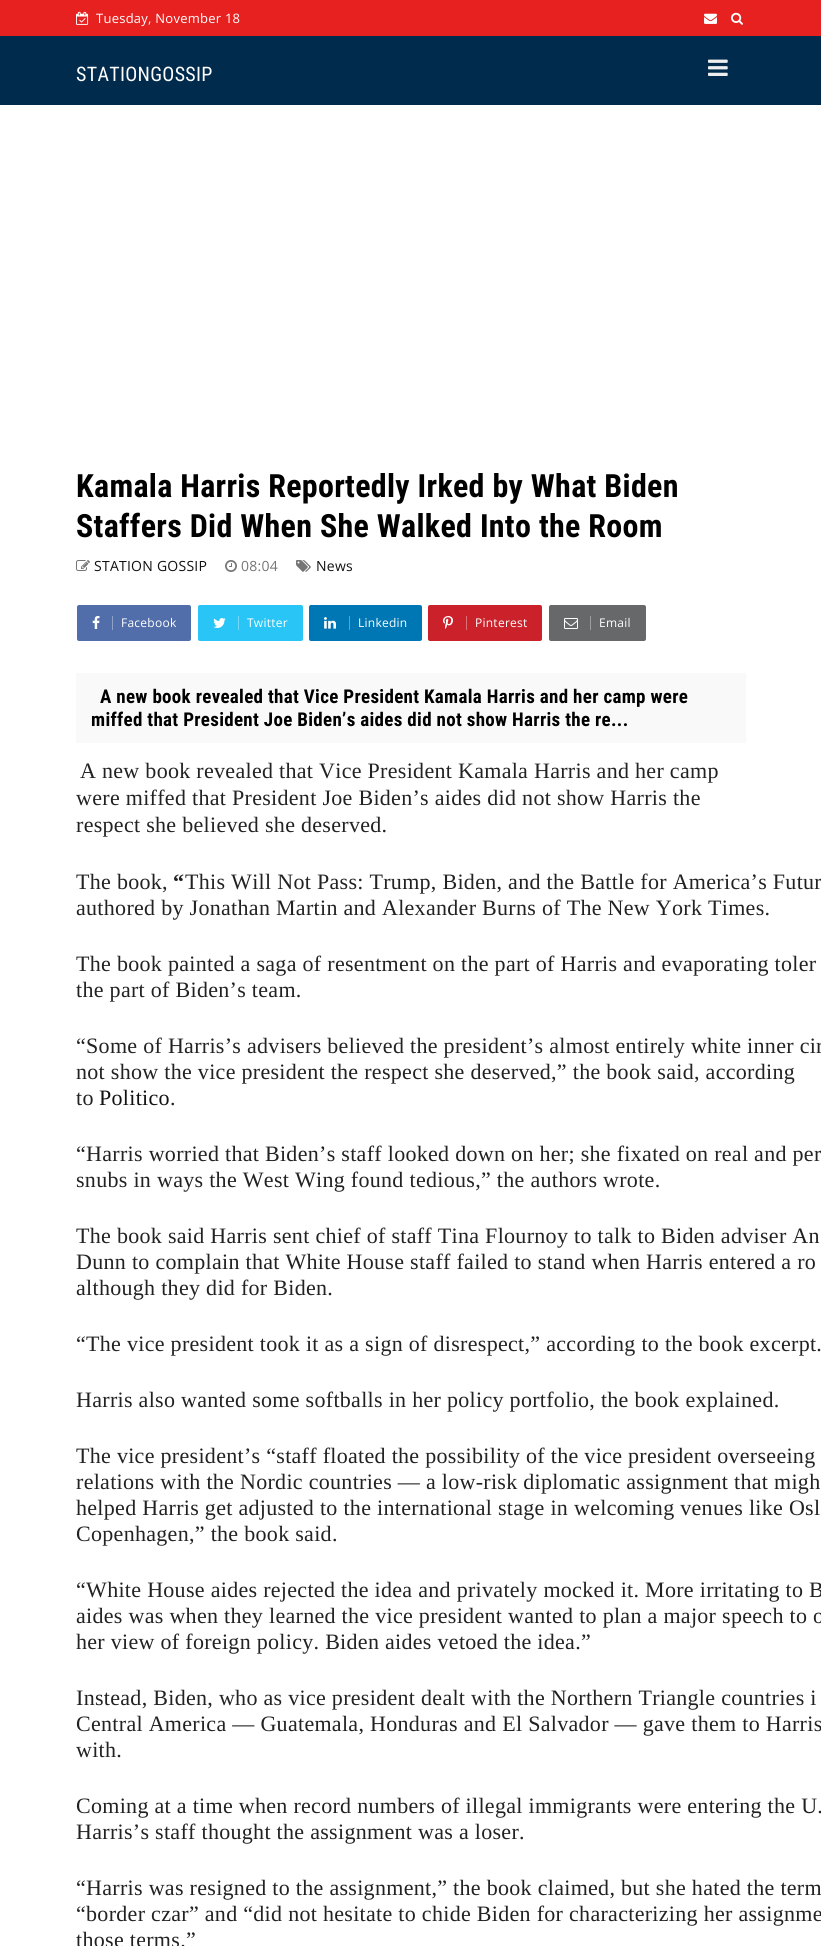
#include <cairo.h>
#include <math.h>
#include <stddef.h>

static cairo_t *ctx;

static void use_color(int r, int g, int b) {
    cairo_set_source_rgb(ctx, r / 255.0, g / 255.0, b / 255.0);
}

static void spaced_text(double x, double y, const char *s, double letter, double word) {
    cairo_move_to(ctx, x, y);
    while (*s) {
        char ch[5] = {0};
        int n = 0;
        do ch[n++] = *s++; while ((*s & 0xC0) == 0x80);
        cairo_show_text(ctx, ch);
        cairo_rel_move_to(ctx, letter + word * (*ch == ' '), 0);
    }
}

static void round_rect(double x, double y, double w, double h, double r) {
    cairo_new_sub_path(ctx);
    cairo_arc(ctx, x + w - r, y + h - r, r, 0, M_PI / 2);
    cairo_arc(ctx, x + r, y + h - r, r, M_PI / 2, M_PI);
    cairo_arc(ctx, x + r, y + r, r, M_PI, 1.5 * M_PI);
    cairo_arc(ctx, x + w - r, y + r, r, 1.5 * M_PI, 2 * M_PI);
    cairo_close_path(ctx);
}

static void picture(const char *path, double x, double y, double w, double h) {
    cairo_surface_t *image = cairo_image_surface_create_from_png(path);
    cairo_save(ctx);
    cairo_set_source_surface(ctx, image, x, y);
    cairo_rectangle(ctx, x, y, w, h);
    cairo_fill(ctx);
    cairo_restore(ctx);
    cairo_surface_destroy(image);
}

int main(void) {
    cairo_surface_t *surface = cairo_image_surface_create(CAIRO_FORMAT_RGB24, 821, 1946);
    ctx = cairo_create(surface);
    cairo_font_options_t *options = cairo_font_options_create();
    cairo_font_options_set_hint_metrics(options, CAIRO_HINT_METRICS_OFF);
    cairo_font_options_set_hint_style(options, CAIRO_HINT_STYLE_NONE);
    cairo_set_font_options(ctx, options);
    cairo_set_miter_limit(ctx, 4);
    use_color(255, 255, 255);
    cairo_paint(ctx);
    use_color(0, 43, 77);
    cairo_rectangle(ctx, 0, 36, 821, 69);
    cairo_fill(ctx);
    use_color(231, 32, 32);
    cairo_rectangle(ctx, 0, 0, 821, 36);
    cairo_fill(ctx);
    picture("img1.png", 76, 11, 13, 14);
    cairo_select_font_face(ctx, "Open Sans", CAIRO_FONT_SLANT_NORMAL, CAIRO_FONT_WEIGHT_NORMAL);
    cairo_set_font_size(ctx, 13);
    use_color(255, 255, 255);
    spaced_text(96, 23, "Tuesday, November 18", 0.25, 0);
    picture("img2.png", 704, 13, 13, 11);
    picture("img3.png", 731, 12, 12, 13);
    cairo_select_font_face(ctx, "Roboto Condensed", CAIRO_FONT_SLANT_NORMAL, CAIRO_FONT_WEIGHT_NORMAL);
    cairo_set_font_size(ctx, 20);
    spaced_text(76, 81, "STATIONGOSSIP", 0.3, 0);
    picture("img4.png", 708, 59, 20, 17);
    cairo_select_font_face(ctx, "Roboto Condensed", CAIRO_FONT_SLANT_NORMAL, CAIRO_FONT_WEIGHT_BOLD);
    cairo_set_font_size(ctx, 32);
    use_color(0, 0, 0);
    spaced_text(76, 497, "Kamala Harris Reportedly Irked by What Biden", 0.3, 0);
    spaced_text(76, 537, "Staffers Did When She Walked Into the Room", 0.3, 0);
    picture("img5.png", 76, 560, 14, 11);
    cairo_select_font_face(ctx, "Open Sans", CAIRO_FONT_SLANT_NORMAL, CAIRO_FONT_WEIGHT_NORMAL);
    cairo_set_font_size(ctx, 14);
    use_color(17, 17, 17);
    spaced_text(94, 571, "STATION GOSSIP", 0.25, 0);
    picture("img6.png", 225, 560, 12, 12);
    use_color(117, 117, 117);
    spaced_text(241, 571, "08:04", 0.25, 0);
    picture("img7.png", 296, 560, 15, 12);
    use_color(17, 17, 17);
    spaced_text(316, 571, "News", 0.25, 0);
    use_color(81, 110, 171);
    round_rect(77, 605, 114, 36, 2);
    cairo_fill(ctx);
    use_color(142, 161, 200);
    cairo_rectangle(ctx, 112, 616, 1, 14);
    cairo_fill(ctx);
    picture("img8.png", 92, 616, 8, 13);
    cairo_set_font_size(ctx, 12);
    use_color(255, 255, 255);
    spaced_text(121, 627, "Facebook", 0.25, 0);
    use_color(41, 197, 246);
    round_rect(198, 605, 105, 36, 2);
    cairo_fill(ctx);
    use_color(116, 217, 249);
    cairo_rectangle(ctx, 238, 616, 1, 14);
    cairo_fill(ctx);
    picture("img9.png", 213, 618, 13, 10);
    use_color(255, 255, 255);
    spaced_text(247, 627, "Twitter", 0.25, 0);
    use_color(0, 119, 181);
    round_rect(309, 605, 113, 36, 2);
    cairo_fill(ctx);
    use_color(89, 167, 207);
    cairo_rectangle(ctx, 349, 616, 1, 14);
    cairo_fill(ctx);
    picture("img10.png", 324, 617, 12, 12);
    use_color(255, 255, 255);
    spaced_text(358, 627, "Linkedin", 0.25, 0);
    use_color(202, 33, 42);
    round_rect(428, 605, 114, 36, 2);
    cairo_fill(ctx);
    use_color(221, 111, 117);
    cairo_rectangle(ctx, 466, 616, 1, 14);
    cairo_fill(ctx);
    picture("img11.png", 443, 616, 10, 13);
    use_color(255, 255, 255);
    spaced_text(475, 627, "Pinterest", 0.25, 0);
    use_color(103, 104, 105);
    round_rect(549, 605, 97, 36, 2);
    cairo_fill(ctx);
    use_color(156, 157, 158);
    cairo_rectangle(ctx, 590, 616, 1, 14);
    cairo_fill(ctx);
    picture("img12.png", 564, 618, 14, 11);
    use_color(255, 255, 255);
    spaced_text(599, 627, "Email", 0.25, 0);
    use_color(249, 249, 249);
    cairo_rectangle(ctx, 76, 673, 670, 70);
    cairo_fill(ctx);
    cairo_select_font_face(ctx, "Roboto Condensed", CAIRO_FONT_SLANT_NORMAL, CAIRO_FONT_WEIGHT_BOLD);
    cairo_set_font_size(ctx, 19);
    use_color(0, 0, 0);
    spaced_text(100, 703, "A new book revealed that Vice President Kamala Harris and her camp were", 0.3, 0);
    spaced_text(91, 726, "miffed that President Joe Biden’s aides did not show Harris the re...", 0.3, 0);
    cairo_select_font_face(ctx, "Liberation Serif", CAIRO_FONT_SLANT_NORMAL, CAIRO_FONT_WEIGHT_NORMAL);
    cairo_set_font_size(ctx, 22);
    use_color(34, 34, 34);
    spaced_text(80, 778, "A new book revealed that Vice President Kamala Harris and her camp", 0.3, 0);
    spaced_text(76, 805, "were miffed that President Joe Biden’s aides did not show Harris the", 0.3, 0);
    spaced_text(76, 832, "respect she believed she deserved.", 0.3, 0);
    spaced_text(76, 889, "The book,", 0.3, 0);
    cairo_select_font_face(ctx, "Liberation Serif", CAIRO_FONT_SLANT_NORMAL, CAIRO_FONT_WEIGHT_BOLD);
    spaced_text(173, 889, "“", 0.3, 0);
    cairo_select_font_face(ctx, "Liberation Serif", CAIRO_FONT_SLANT_NORMAL, CAIRO_FONT_WEIGHT_NORMAL);
    spaced_text(185, 889, "This Will Not Pass: Trump, Biden, and the Battle for America’s Futur", 0.3, 0);
    spaced_text(76, 915, "authored by Jonathan Martin and Alexander Burns of The New York Times.", 0.3, 0);
    spaced_text(76, 971, "The book painted a saga of resentment on the part of Harris and evaporating toler", 0.3, 0);
    spaced_text(76, 997, "the part of Biden’s team.", 0.3, 0);
    spaced_text(76, 1053, "“Some of Harris’s advisers believed the president’s almost entirely white inner cir", 0.3, 0);
    spaced_text(76, 1079, "not show the vice president the respect she deserved,” the book said, according", 0.3, 0);
    spaced_text(76, 1105, "to", 0.3, 0);
    use_color(17, 17, 17);
    spaced_text(99, 1105, "Politico", 0.3, 0);
    use_color(34, 34, 34);
    spaced_text(170, 1105, ".", 0.3, 0);
    spaced_text(76, 1161, "“Harris worried that Biden’s staff looked down on her; she fixated on real and per", 0.3, 0);
    spaced_text(76, 1187, "snubs in ways the West Wing found tedious,” the authors wrote.", 0.3, 0);
    spaced_text(76, 1243, "The book said Harris sent chief of staff Tina Flournoy to talk to Biden adviser An", 0.3, 0);
    spaced_text(76, 1269, "Dunn to complain that White House staff failed to stand when Harris entered a ro", 0.3, 0);
    spaced_text(76, 1295, "although they did for Biden.", 0.3, 0);
    spaced_text(76, 1351, "“The vice president took it as a sign of disrespect,” according to the book excerpt.", 0.3, 0);
    spaced_text(76, 1407, "Harris also wanted some softballs in her policy portfolio, the book explained.", 0.3, 0);
    spaced_text(76, 1463, "The vice president’s “staff floated the possibility of the vice president overseeing", 0.3, 0);
    spaced_text(76, 1489, "relations with the Nordic countries — a low-risk diplomatic assignment that migh", 0.3, 0);
    spaced_text(76, 1515, "helped Harris get adjusted to the international stage in welcoming venues like Osl", 0.3, 0);
    spaced_text(76, 1541, "Copenhagen,” the book said.", 0.3, 0);
    spaced_text(76, 1597, "“White House aides rejected the idea and privately mocked it. More irritating to B", 0.3, 0);
    spaced_text(76, 1623, "aides was when they learned the vice president wanted to plan a major speech to o", 0.3, 0);
    spaced_text(76, 1649, "her view of foreign policy. Biden aides vetoed the idea.”", 0.3, 0);
    spaced_text(76, 1705, "Instead, Biden, who as vice president dealt with the Northern Triangle countries i", 0.3, 0);
    spaced_text(76, 1731, "Central America — Guatemala, Honduras and El Salvador — gave them to Harris", 0.3, 0);
    spaced_text(76, 1757, "with.", 0.3, 0);
    spaced_text(76, 1813, "Coming at a time when record numbers of illegal immigrants were entering the U.", 0.3, 0);
    spaced_text(76, 1839, "Harris’s staff thought the assignment was a loser.", 0.3, 0);
    spaced_text(76, 1895, "“Harris was resigned to the assignment,” the book claimed, but she hated the term", 0.3, 0);
    spaced_text(76, 1921, "“border czar” and “did not hesitate to chide Biden for characterizing her assignme", 0.3, 0);
    spaced_text(76, 1947, "those terms.”", 0.3, 0);
    cairo_surface_write_to_png(surface, "result.png");
    cairo_font_options_destroy(options);
    cairo_destroy(ctx);
    cairo_surface_destroy(surface);
    return 0;
}
